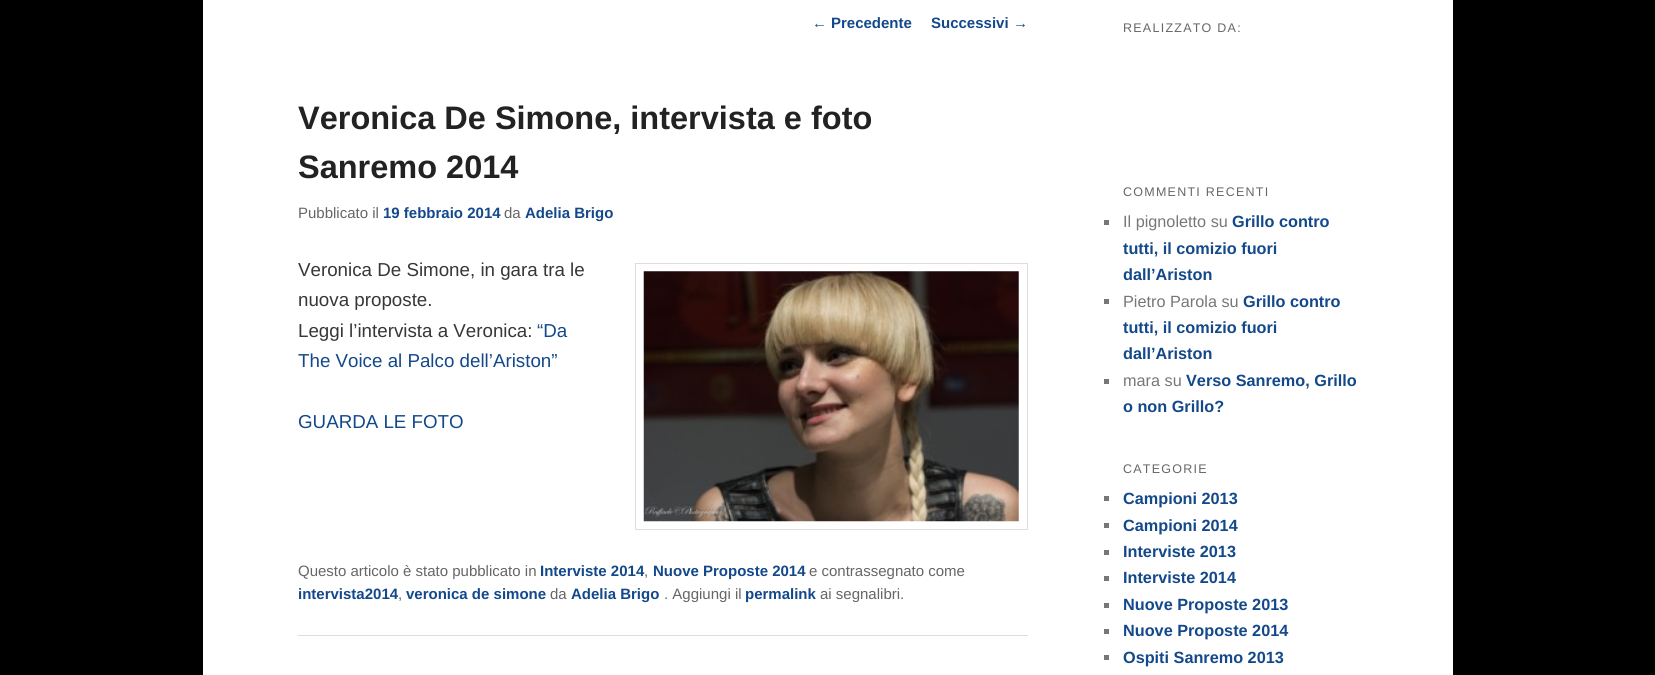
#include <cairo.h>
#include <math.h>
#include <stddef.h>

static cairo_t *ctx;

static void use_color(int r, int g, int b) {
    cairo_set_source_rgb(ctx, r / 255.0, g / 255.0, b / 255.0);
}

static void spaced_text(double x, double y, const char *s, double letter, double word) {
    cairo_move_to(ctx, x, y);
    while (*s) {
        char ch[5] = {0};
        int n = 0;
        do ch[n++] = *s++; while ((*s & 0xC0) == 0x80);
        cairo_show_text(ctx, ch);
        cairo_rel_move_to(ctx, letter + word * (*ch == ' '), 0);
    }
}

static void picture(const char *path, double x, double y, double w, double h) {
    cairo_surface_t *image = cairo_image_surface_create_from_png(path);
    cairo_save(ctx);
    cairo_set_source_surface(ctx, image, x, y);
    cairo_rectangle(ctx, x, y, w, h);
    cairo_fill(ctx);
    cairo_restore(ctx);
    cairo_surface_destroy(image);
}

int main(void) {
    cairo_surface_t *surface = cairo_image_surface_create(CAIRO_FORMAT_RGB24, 1655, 675);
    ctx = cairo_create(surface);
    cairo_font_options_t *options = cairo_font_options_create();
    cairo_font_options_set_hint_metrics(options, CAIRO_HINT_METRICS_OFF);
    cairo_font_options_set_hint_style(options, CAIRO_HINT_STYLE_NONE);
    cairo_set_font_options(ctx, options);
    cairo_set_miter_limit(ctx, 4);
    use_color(0, 0, 0);
    cairo_paint(ctx);
    use_color(255, 255, 255);
    cairo_rectangle(ctx, 203, 0, 1250, 675);
    cairo_fill(ctx);
    cairo_select_font_face(ctx, "Liberation Sans", CAIRO_FONT_SLANT_NORMAL, CAIRO_FONT_WEIGHT_NORMAL);
    cairo_set_font_size(ctx, 15);
    use_color(19, 72, 139);
    cairo_move_to(ctx, 812, 28);
    cairo_show_text(ctx, "←");
    cairo_select_font_face(ctx, "Liberation Sans", CAIRO_FONT_SLANT_NORMAL, CAIRO_FONT_WEIGHT_BOLD);
    cairo_move_to(ctx, 831, 28);
    cairo_show_text(ctx, "Precedente");
    cairo_move_to(ctx, 931, 28);
    cairo_show_text(ctx, "Successivi");
    cairo_select_font_face(ctx, "Liberation Sans", CAIRO_FONT_SLANT_NORMAL, CAIRO_FONT_WEIGHT_NORMAL);
    cairo_move_to(ctx, 1013, 28);
    cairo_show_text(ctx, "→");
    use_color(221, 221, 221);
    cairo_rectangle(ctx, 298, 635, 730, 1);
    cairo_fill(ctx);
    cairo_select_font_face(ctx, "Liberation Sans", CAIRO_FONT_SLANT_NORMAL, CAIRO_FONT_WEIGHT_BOLD);
    cairo_set_font_size(ctx, 32.5);
    use_color(34, 34, 34);
    cairo_move_to(ctx, 298, 129);
    cairo_show_text(ctx, "Veronica De Simone, intervista e foto");
    cairo_move_to(ctx, 298, 178);
    cairo_show_text(ctx, "Sanremo 2014");
    cairo_select_font_face(ctx, "Liberation Sans", CAIRO_FONT_SLANT_NORMAL, CAIRO_FONT_WEIGHT_NORMAL);
    cairo_set_font_size(ctx, 15);
    use_color(102, 102, 102);
    cairo_move_to(ctx, 298, 218);
    cairo_show_text(ctx, "Pubblicato il");
    cairo_select_font_face(ctx, "Liberation Sans", CAIRO_FONT_SLANT_NORMAL, CAIRO_FONT_WEIGHT_BOLD);
    use_color(19, 72, 139);
    cairo_move_to(ctx, 383, 218);
    cairo_show_text(ctx, "19 febbraio 2014");
    cairo_select_font_face(ctx, "Liberation Sans", CAIRO_FONT_SLANT_NORMAL, CAIRO_FONT_WEIGHT_NORMAL);
    use_color(102, 102, 102);
    cairo_move_to(ctx, 504, 218);
    cairo_show_text(ctx, "da");
    cairo_select_font_face(ctx, "Liberation Sans", CAIRO_FONT_SLANT_NORMAL, CAIRO_FONT_WEIGHT_BOLD);
    use_color(19, 72, 139);
    cairo_move_to(ctx, 525, 218);
    cairo_show_text(ctx, "Adelia Brigo");
    cairo_select_font_face(ctx, "Liberation Sans", CAIRO_FONT_SLANT_NORMAL, CAIRO_FONT_WEIGHT_NORMAL);
    cairo_set_font_size(ctx, 18.75);
    use_color(55, 55, 55);
    cairo_move_to(ctx, 298, 276);
    cairo_show_text(ctx, "Veronica De Simone, in gara tra le");
    cairo_rectangle(ctx, 635.5, 263.5, 392, 266);
    use_color(221, 221, 221);
    cairo_set_line_width(ctx, 1);
    cairo_stroke(ctx);
    picture("img1.png", 643, 271, 376, 251);
    use_color(55, 55, 55);
    cairo_move_to(ctx, 298, 306);
    cairo_show_text(ctx, "nuova proposte.");
    cairo_move_to(ctx, 298, 337);
    cairo_show_text(ctx, "Leggi l’intervista a Veronica:");
    use_color(19, 72, 139);
    cairo_move_to(ctx, 537, 337);
    cairo_show_text(ctx, "“Da");
    cairo_move_to(ctx, 298, 367);
    cairo_show_text(ctx, "The Voice al Palco dell’Ariston”");
    cairo_move_to(ctx, 298, 428);
    cairo_show_text(ctx, "GUARDA LE FOTO");
    cairo_set_font_size(ctx, 15);
    use_color(102, 102, 102);
    cairo_move_to(ctx, 298, 576);
    cairo_show_text(ctx, "Questo articolo è stato pubblicato in");
    cairo_select_font_face(ctx, "Liberation Sans", CAIRO_FONT_SLANT_NORMAL, CAIRO_FONT_WEIGHT_BOLD);
    use_color(19, 72, 139);
    cairo_move_to(ctx, 540, 576);
    cairo_show_text(ctx, "Interviste 2014");
    cairo_select_font_face(ctx, "Liberation Sans", CAIRO_FONT_SLANT_NORMAL, CAIRO_FONT_WEIGHT_NORMAL);
    use_color(102, 102, 102);
    cairo_move_to(ctx, 644, 576);
    cairo_show_text(ctx, ",");
    cairo_select_font_face(ctx, "Liberation Sans", CAIRO_FONT_SLANT_NORMAL, CAIRO_FONT_WEIGHT_BOLD);
    use_color(19, 72, 139);
    cairo_move_to(ctx, 653, 576);
    cairo_show_text(ctx, "Nuove Proposte 2014");
    cairo_select_font_face(ctx, "Liberation Sans", CAIRO_FONT_SLANT_NORMAL, CAIRO_FONT_WEIGHT_NORMAL);
    use_color(102, 102, 102);
    cairo_move_to(ctx, 809, 576);
    cairo_show_text(ctx, "e contrassegnato come");
    cairo_select_font_face(ctx, "Liberation Sans", CAIRO_FONT_SLANT_NORMAL, CAIRO_FONT_WEIGHT_BOLD);
    use_color(19, 72, 139);
    cairo_move_to(ctx, 298, 599);
    cairo_show_text(ctx, "intervista2014");
    cairo_select_font_face(ctx, "Liberation Sans", CAIRO_FONT_SLANT_NORMAL, CAIRO_FONT_WEIGHT_NORMAL);
    use_color(102, 102, 102);
    cairo_move_to(ctx, 398, 599);
    cairo_show_text(ctx, ",");
    cairo_select_font_face(ctx, "Liberation Sans", CAIRO_FONT_SLANT_NORMAL, CAIRO_FONT_WEIGHT_BOLD);
    use_color(19, 72, 139);
    cairo_move_to(ctx, 406, 599);
    cairo_show_text(ctx, "veronica de simone");
    cairo_select_font_face(ctx, "Liberation Sans", CAIRO_FONT_SLANT_NORMAL, CAIRO_FONT_WEIGHT_NORMAL);
    use_color(102, 102, 102);
    cairo_move_to(ctx, 550, 599);
    cairo_show_text(ctx, "da");
    cairo_select_font_face(ctx, "Liberation Sans", CAIRO_FONT_SLANT_NORMAL, CAIRO_FONT_WEIGHT_BOLD);
    use_color(19, 72, 139);
    cairo_move_to(ctx, 571, 599);
    cairo_show_text(ctx, "Adelia Brigo");
    cairo_select_font_face(ctx, "Liberation Sans", CAIRO_FONT_SLANT_NORMAL, CAIRO_FONT_WEIGHT_NORMAL);
    use_color(102, 102, 102);
    cairo_move_to(ctx, 664, 599);
    cairo_show_text(ctx, ". Aggiungi il");
    cairo_select_font_face(ctx, "Liberation Sans", CAIRO_FONT_SLANT_NORMAL, CAIRO_FONT_WEIGHT_BOLD);
    use_color(19, 72, 139);
    cairo_move_to(ctx, 745, 599);
    cairo_show_text(ctx, "permalink");
    cairo_select_font_face(ctx, "Liberation Sans", CAIRO_FONT_SLANT_NORMAL, CAIRO_FONT_WEIGHT_NORMAL);
    use_color(102, 102, 102);
    cairo_move_to(ctx, 820, 599);
    cairo_show_text(ctx, "ai segnalibri.");
    cairo_set_font_size(ctx, 12.5);
    spaced_text(1123, 32, "REALIZZATO DA:", 1.25, 0);
    spaced_text(1123, 196, "COMMENTI RECENTI", 1.25, 0);
    use_color(119, 119, 119);
    cairo_rectangle(ctx, 1104, 220, 5, 5);
    cairo_fill(ctx);
    cairo_set_font_size(ctx, 16.25);
    cairo_move_to(ctx, 1123, 227);
    cairo_show_text(ctx, "Il pignoletto su");
    cairo_select_font_face(ctx, "Liberation Sans", CAIRO_FONT_SLANT_NORMAL, CAIRO_FONT_WEIGHT_BOLD);
    use_color(19, 72, 139);
    cairo_move_to(ctx, 1232, 227);
    cairo_show_text(ctx, "Grillo contro");
    cairo_move_to(ctx, 1123, 254);
    cairo_show_text(ctx, "tutti, il comizio fuori");
    cairo_move_to(ctx, 1123, 280);
    cairo_show_text(ctx, "dall’Ariston");
    use_color(119, 119, 119);
    cairo_rectangle(ctx, 1104, 299, 5, 5);
    cairo_fill(ctx);
    cairo_select_font_face(ctx, "Liberation Sans", CAIRO_FONT_SLANT_NORMAL, CAIRO_FONT_WEIGHT_NORMAL);
    cairo_move_to(ctx, 1123, 307);
    cairo_show_text(ctx, "Pietro Parola su");
    cairo_select_font_face(ctx, "Liberation Sans", CAIRO_FONT_SLANT_NORMAL, CAIRO_FONT_WEIGHT_BOLD);
    use_color(19, 72, 139);
    cairo_move_to(ctx, 1243, 307);
    cairo_show_text(ctx, "Grillo contro");
    cairo_move_to(ctx, 1123, 333);
    cairo_show_text(ctx, "tutti, il comizio fuori");
    cairo_move_to(ctx, 1123, 359);
    cairo_show_text(ctx, "dall’Ariston");
    use_color(119, 119, 119);
    cairo_rectangle(ctx, 1104, 379, 5, 5);
    cairo_fill(ctx);
    cairo_select_font_face(ctx, "Liberation Sans", CAIRO_FONT_SLANT_NORMAL, CAIRO_FONT_WEIGHT_NORMAL);
    cairo_move_to(ctx, 1123, 386);
    cairo_show_text(ctx, "mara su");
    cairo_select_font_face(ctx, "Liberation Sans", CAIRO_FONT_SLANT_NORMAL, CAIRO_FONT_WEIGHT_BOLD);
    use_color(19, 72, 139);
    cairo_move_to(ctx, 1186, 386);
    cairo_show_text(ctx, "Verso Sanremo, Grillo");
    cairo_move_to(ctx, 1123, 412);
    cairo_show_text(ctx, "o non Grillo?");
    cairo_select_font_face(ctx, "Liberation Sans", CAIRO_FONT_SLANT_NORMAL, CAIRO_FONT_WEIGHT_NORMAL);
    cairo_set_font_size(ctx, 12.5);
    use_color(102, 102, 102);
    spaced_text(1123, 473, "CATEGORIE", 1.25, 0);
    use_color(119, 119, 119);
    cairo_rectangle(ctx, 1104, 496, 5, 5);
    cairo_fill(ctx);
    cairo_select_font_face(ctx, "Liberation Sans", CAIRO_FONT_SLANT_NORMAL, CAIRO_FONT_WEIGHT_BOLD);
    cairo_set_font_size(ctx, 16.25);
    use_color(19, 72, 139);
    cairo_move_to(ctx, 1123, 504);
    cairo_show_text(ctx, "Campioni 2013");
    use_color(119, 119, 119);
    cairo_rectangle(ctx, 1104, 523, 5, 5);
    cairo_fill(ctx);
    use_color(19, 72, 139);
    cairo_move_to(ctx, 1123, 531);
    cairo_show_text(ctx, "Campioni 2014");
    use_color(119, 119, 119);
    cairo_rectangle(ctx, 1104, 550, 5, 5);
    cairo_fill(ctx);
    use_color(19, 72, 139);
    cairo_move_to(ctx, 1123, 557);
    cairo_show_text(ctx, "Interviste 2013");
    use_color(119, 119, 119);
    cairo_rectangle(ctx, 1104, 576, 5, 5);
    cairo_fill(ctx);
    use_color(19, 72, 139);
    cairo_move_to(ctx, 1123, 583);
    cairo_show_text(ctx, "Interviste 2014");
    use_color(119, 119, 119);
    cairo_rectangle(ctx, 1104, 603, 5, 5);
    cairo_fill(ctx);
    use_color(19, 72, 139);
    cairo_move_to(ctx, 1123, 610);
    cairo_show_text(ctx, "Nuove Proposte 2013");
    use_color(119, 119, 119);
    cairo_rectangle(ctx, 1104, 629, 5, 5);
    cairo_fill(ctx);
    use_color(19, 72, 139);
    cairo_move_to(ctx, 1123, 636);
    cairo_show_text(ctx, "Nuove Proposte 2014");
    use_color(119, 119, 119);
    cairo_rectangle(ctx, 1104, 655, 5, 5);
    cairo_fill(ctx);
    use_color(19, 72, 139);
    cairo_move_to(ctx, 1123, 663);
    cairo_show_text(ctx, "Ospiti Sanremo 2013");
    cairo_surface_write_to_png(surface, "result.png");
    cairo_font_options_destroy(options);
    cairo_destroy(ctx);
    cairo_surface_destroy(surface);
    return 0;
}
